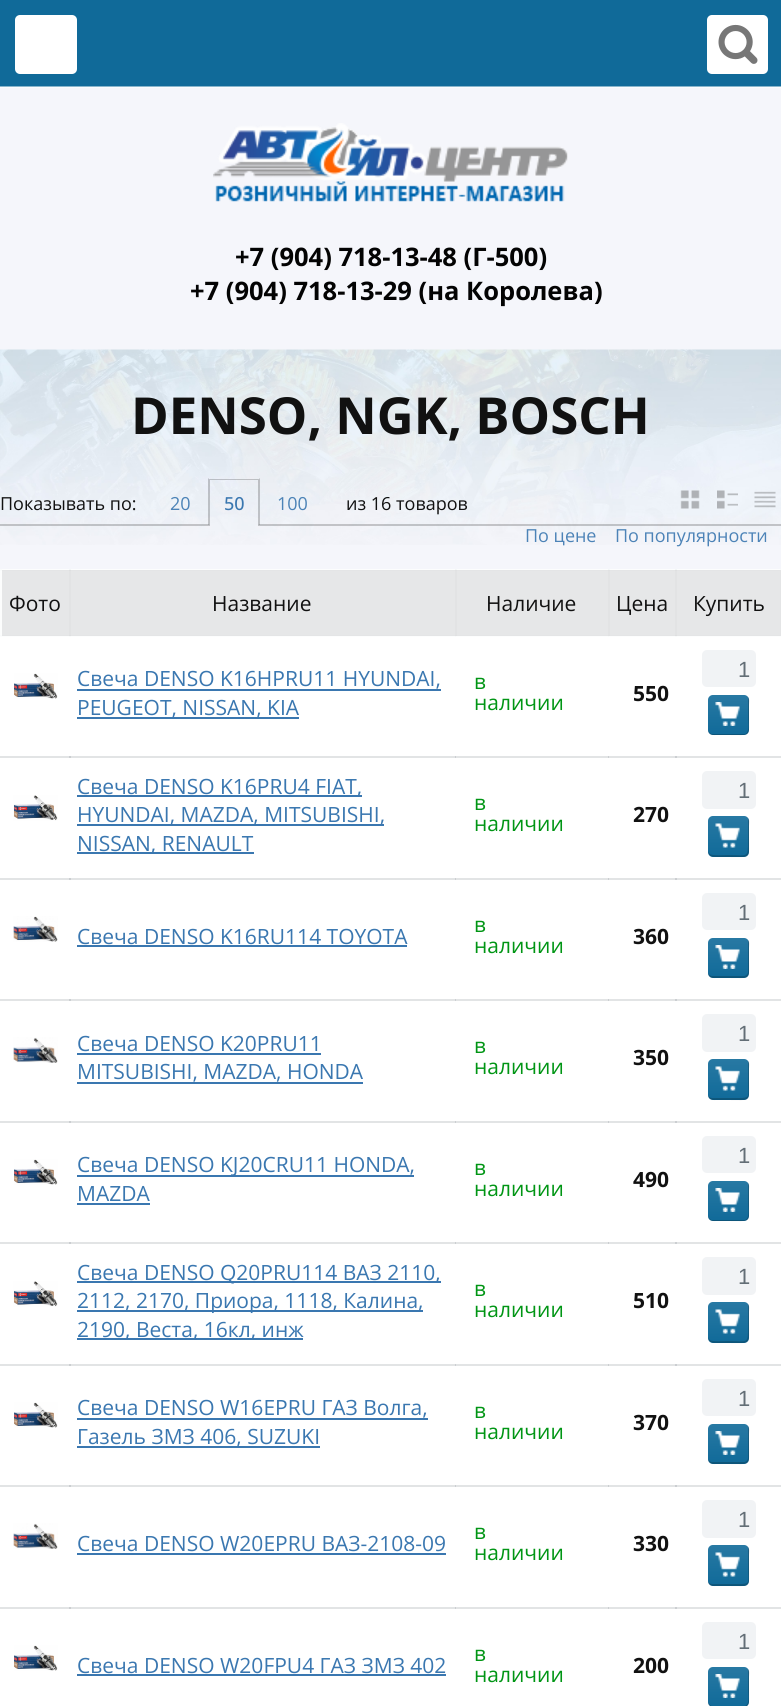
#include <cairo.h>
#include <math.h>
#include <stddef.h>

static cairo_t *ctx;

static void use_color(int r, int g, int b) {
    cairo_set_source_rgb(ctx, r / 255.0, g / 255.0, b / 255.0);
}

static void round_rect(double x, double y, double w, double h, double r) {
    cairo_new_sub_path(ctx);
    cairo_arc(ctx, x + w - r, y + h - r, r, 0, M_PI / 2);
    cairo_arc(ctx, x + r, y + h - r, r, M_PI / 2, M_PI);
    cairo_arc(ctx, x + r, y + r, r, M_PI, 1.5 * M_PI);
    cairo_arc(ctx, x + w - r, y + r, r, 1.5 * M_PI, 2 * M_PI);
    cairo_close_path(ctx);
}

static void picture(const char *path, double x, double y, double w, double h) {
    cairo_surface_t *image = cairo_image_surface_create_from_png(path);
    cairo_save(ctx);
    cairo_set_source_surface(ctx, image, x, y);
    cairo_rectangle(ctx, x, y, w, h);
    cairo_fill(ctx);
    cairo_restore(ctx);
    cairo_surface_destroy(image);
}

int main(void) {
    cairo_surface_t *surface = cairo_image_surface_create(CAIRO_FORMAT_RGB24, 781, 1706);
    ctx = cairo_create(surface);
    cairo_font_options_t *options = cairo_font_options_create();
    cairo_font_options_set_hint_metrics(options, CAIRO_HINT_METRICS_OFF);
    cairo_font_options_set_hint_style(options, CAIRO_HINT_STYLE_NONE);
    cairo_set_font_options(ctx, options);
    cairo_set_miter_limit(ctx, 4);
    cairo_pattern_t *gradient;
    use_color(245, 246, 251);
    cairo_paint(ctx);
    use_color(250, 251, 253);
    cairo_rectangle(ctx, 0, 87, 781, 1);
    cairo_fill(ctx);
    use_color(16, 106, 153);
    cairo_rectangle(ctx, 0, 0, 781, 86);
    cairo_fill(ctx);
    use_color(136, 181, 204);
    cairo_rectangle(ctx, 0, 86, 781, 1);
    cairo_fill(ctx);
    use_color(255, 255, 255);
    round_rect(15, 15, 62, 59, 5);
    cairo_fill(ctx);
    round_rect(707, 15, 61, 59, 5);
    cairo_fill(ctx);
    picture("img1.png", 718, 24, 40, 40);
    picture("img2.png", 213, 123, 355, 79);
    cairo_select_font_face(ctx, "Open Sans", CAIRO_FONT_SLANT_NORMAL, CAIRO_FONT_WEIGHT_BOLD);
    cairo_set_font_size(ctx, 25.5);
    use_color(3, 3, 3);
    cairo_move_to(ctx, 235, 266);
    cairo_show_text(ctx, "+7 (904) 718-13-48 (Г-500)");
    cairo_move_to(ctx, 190, 300);
    cairo_show_text(ctx, "+7 (904) 718-13-29 (на Королева)");
    picture("img3.png", 0, 349, 781, 196);
    cairo_set_font_size(ctx, 51);
    use_color(17, 17, 17);
    cairo_move_to(ctx, 131, 434);
    cairo_show_text(ctx, "DENSO, NGK, BOSCH");
    cairo_select_font_face(ctx, "Open Sans", CAIRO_FONT_SLANT_NORMAL, CAIRO_FONT_WEIGHT_NORMAL);
    cairo_set_font_size(ctx, 18);
    cairo_move_to(ctx, 0, 510);
    cairo_show_text(ctx, "Показывать по:");
    use_color(76, 131, 183);
    cairo_move_to(ctx, 170, 510);
    cairo_show_text(ctx, "20");
    cairo_save(ctx);
    cairo_rectangle(ctx, 0, 479, 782, 76);
    cairo_clip(ctx);
    cairo_set_source_rgba(ctx, 0, 0, 0, 0.2);
    cairo_new_path(ctx);
    cairo_move_to(ctx, 208, 478);
    cairo_line_to(ctx, 260, 478);
    cairo_line_to(ctx, 258, 480);
    cairo_line_to(ctx, 210, 480);
    cairo_close_path(ctx);
    cairo_fill(ctx);
    cairo_restore(ctx);
    cairo_set_source_rgba(ctx, 0, 0, 0, 0.2);
    cairo_new_path(ctx);
    cairo_move_to(ctx, 260, 478);
    cairo_line_to(ctx, 260, 525);
    cairo_line_to(ctx, 258, 524);
    cairo_line_to(ctx, 258, 480);
    cairo_close_path(ctx);
    cairo_move_to(ctx, 208, 525);
    cairo_line_to(ctx, 208, 478);
    cairo_line_to(ctx, 210, 480);
    cairo_line_to(ctx, 210, 524);
    cairo_close_path(ctx);
    cairo_fill(ctx);
    cairo_select_font_face(ctx, "Open Sans Medium", CAIRO_FONT_SLANT_NORMAL, CAIRO_FONT_WEIGHT_NORMAL);
    use_color(58, 119, 176);
    cairo_move_to(ctx, 224, 510);
    cairo_show_text(ctx, "50");
    cairo_set_source_rgba(ctx, 0, 0, 0, 0.2);
    cairo_rectangle(ctx, 0, 524, 210, 2);
    cairo_fill(ctx);
    cairo_rectangle(ctx, 258, 524, 523, 2);
    cairo_fill(ctx);
    cairo_select_font_face(ctx, "Open Sans", CAIRO_FONT_SLANT_NORMAL, CAIRO_FONT_WEIGHT_NORMAL);
    use_color(76, 131, 183);
    cairo_move_to(ctx, 277, 510);
    cairo_show_text(ctx, "100");
    use_color(17, 17, 17);
    cairo_move_to(ctx, 346, 510);
    cairo_show_text(ctx, "из 16 товаров");
    picture("img4.png", 680, 490, 20, 19);
    picture("img5.png", 717, 490, 21, 19);
    picture("img6.png", 754, 491, 22, 17);
    use_color(76, 131, 183);
    cairo_move_to(ctx, 525, 542);
    cairo_show_text(ctx, "По цене");
    cairo_move_to(ctx, 615, 542);
    cairo_show_text(ctx, "По популярности");
    use_color(255, 255, 255);
    cairo_rectangle(ctx, 0, 637, 781, 1069);
    cairo_fill(ctx);
    use_color(252, 253, 253);
    cairo_rectangle(ctx, 0, 569, 2, 67);
    cairo_fill(ctx);
    cairo_rectangle(ctx, 0, 636, 781, 1);
    cairo_fill(ctx);
    use_color(249, 251, 251);
    cairo_rectangle(ctx, 0, 635, 2, 1);
    cairo_fill(ctx);
    use_color(252, 253, 253);
    cairo_rectangle(ctx, 0, 569, 781, 1);
    cairo_fill(ctx);
    use_color(249, 251, 251);
    cairo_rectangle(ctx, 0, 569, 2, 2);
    cairo_fill(ctx);
    cairo_rectangle(ctx, 69, 636, 2, 1);
    cairo_fill(ctx);
    use_color(243, 247, 247);
    cairo_rectangle(ctx, 69, 569, 2, 1);
    cairo_fill(ctx);
    use_color(249, 251, 251);
    cairo_rectangle(ctx, 455, 635, 1, 2);
    cairo_fill(ctx);
    use_color(246, 249, 249);
    cairo_rectangle(ctx, 455, 569, 2, 1);
    cairo_fill(ctx);
    use_color(243, 247, 247);
    cairo_rectangle(ctx, 455, 569, 1, 2);
    cairo_fill(ctx);
    use_color(249, 251, 251);
    cairo_rectangle(ctx, 608, 635, 1, 2);
    cairo_fill(ctx);
    use_color(246, 249, 249);
    cairo_rectangle(ctx, 608, 569, 2, 1);
    cairo_fill(ctx);
    use_color(243, 247, 247);
    cairo_rectangle(ctx, 608, 569, 1, 2);
    cairo_fill(ctx);
    use_color(249, 251, 251);
    cairo_rectangle(ctx, 675, 636, 2, 1);
    cairo_fill(ctx);
    use_color(243, 247, 247);
    cairo_rectangle(ctx, 675, 569, 2, 1);
    cairo_fill(ctx);
    use_color(249, 251, 251);
    cairo_rectangle(ctx, 780, 569, 1, 2);
    cairo_fill(ctx);
    use_color(226, 228, 229);
    cairo_rectangle(ctx, 0, 756, 781, 2);
    cairo_fill(ctx);
    use_color(203, 206, 209);
    cairo_rectangle(ctx, 69, 756, 2, 2);
    cairo_fill(ctx);
    cairo_rectangle(ctx, 455, 756, 1, 2);
    cairo_fill(ctx);
    cairo_rectangle(ctx, 608, 756, 1, 2);
    cairo_fill(ctx);
    use_color(226, 228, 229);
    cairo_rectangle(ctx, 0, 878, 781, 2);
    cairo_fill(ctx);
    use_color(203, 206, 209);
    cairo_rectangle(ctx, 69, 878, 2, 2);
    cairo_fill(ctx);
    cairo_rectangle(ctx, 455, 878, 1, 2);
    cairo_fill(ctx);
    cairo_rectangle(ctx, 608, 878, 1, 2);
    cairo_fill(ctx);
    use_color(226, 228, 229);
    cairo_rectangle(ctx, 0, 999, 781, 2);
    cairo_fill(ctx);
    use_color(203, 206, 209);
    cairo_rectangle(ctx, 69, 999, 2, 2);
    cairo_fill(ctx);
    cairo_rectangle(ctx, 455, 999, 1, 2);
    cairo_fill(ctx);
    cairo_rectangle(ctx, 608, 999, 1, 2);
    cairo_fill(ctx);
    use_color(226, 228, 229);
    cairo_rectangle(ctx, 0, 1121, 781, 2);
    cairo_fill(ctx);
    use_color(203, 206, 209);
    cairo_rectangle(ctx, 69, 1121, 2, 2);
    cairo_fill(ctx);
    cairo_rectangle(ctx, 455, 1121, 1, 2);
    cairo_fill(ctx);
    cairo_rectangle(ctx, 608, 1121, 1, 2);
    cairo_fill(ctx);
    use_color(226, 228, 229);
    cairo_rectangle(ctx, 0, 1242, 781, 2);
    cairo_fill(ctx);
    use_color(203, 206, 209);
    cairo_rectangle(ctx, 69, 1242, 2, 2);
    cairo_fill(ctx);
    cairo_rectangle(ctx, 455, 1242, 1, 2);
    cairo_fill(ctx);
    cairo_rectangle(ctx, 608, 1242, 1, 2);
    cairo_fill(ctx);
    use_color(226, 228, 229);
    cairo_rectangle(ctx, 0, 1364, 781, 2);
    cairo_fill(ctx);
    use_color(203, 206, 209);
    cairo_rectangle(ctx, 69, 1364, 2, 2);
    cairo_fill(ctx);
    cairo_rectangle(ctx, 455, 1364, 1, 2);
    cairo_fill(ctx);
    cairo_rectangle(ctx, 608, 1364, 1, 2);
    cairo_fill(ctx);
    use_color(226, 228, 229);
    cairo_rectangle(ctx, 0, 1485, 781, 2);
    cairo_fill(ctx);
    use_color(203, 206, 209);
    cairo_rectangle(ctx, 69, 1485, 2, 2);
    cairo_fill(ctx);
    cairo_rectangle(ctx, 455, 1485, 1, 2);
    cairo_fill(ctx);
    cairo_rectangle(ctx, 608, 1485, 1, 2);
    cairo_fill(ctx);
    use_color(226, 228, 229);
    cairo_rectangle(ctx, 0, 1607, 781, 2);
    cairo_fill(ctx);
    use_color(203, 206, 209);
    cairo_rectangle(ctx, 69, 1607, 2, 2);
    cairo_fill(ctx);
    cairo_rectangle(ctx, 455, 1607, 1, 2);
    cairo_fill(ctx);
    cairo_rectangle(ctx, 608, 1607, 1, 2);
    cairo_fill(ctx);
    use_color(230, 231, 232);
    cairo_rectangle(ctx, 2, 571, 67, 64);
    cairo_fill(ctx);
    use_color(228, 229, 230);
    cairo_rectangle(ctx, 2, 635, 67, 1);
    cairo_fill(ctx);
    cairo_rectangle(ctx, 2, 570, 67, 1);
    cairo_fill(ctx);
    cairo_set_font_size(ctx, 21);
    use_color(17, 17, 17);
    cairo_move_to(ctx, 9, 611);
    cairo_show_text(ctx, "Фото");
    use_color(230, 231, 232);
    cairo_rectangle(ctx, 71, 571, 384, 64);
    cairo_fill(ctx);
    use_color(226, 227, 228);
    cairo_rectangle(ctx, 69, 570, 2, 66);
    cairo_fill(ctx);
    use_color(228, 229, 230);
    cairo_rectangle(ctx, 69, 635, 386, 1);
    cairo_fill(ctx);
    use_color(222, 223, 224);
    cairo_rectangle(ctx, 69, 635, 2, 1);
    cairo_fill(ctx);
    use_color(228, 229, 230);
    cairo_rectangle(ctx, 69, 570, 386, 1);
    cairo_fill(ctx);
    use_color(222, 223, 224);
    cairo_rectangle(ctx, 69, 570, 2, 1);
    cairo_fill(ctx);
    use_color(17, 17, 17);
    cairo_move_to(ctx, 212, 611);
    cairo_show_text(ctx, "Название");
    use_color(230, 231, 232);
    cairo_rectangle(ctx, 457, 571, 151, 64);
    cairo_fill(ctx);
    use_color(226, 227, 228);
    cairo_rectangle(ctx, 455, 570, 2, 66);
    cairo_fill(ctx);
    use_color(228, 229, 230);
    cairo_rectangle(ctx, 455, 635, 153, 1);
    cairo_fill(ctx);
    use_color(224, 225, 226);
    cairo_rectangle(ctx, 455, 635, 2, 1);
    cairo_fill(ctx);
    use_color(228, 229, 230);
    cairo_rectangle(ctx, 455, 570, 153, 1);
    cairo_fill(ctx);
    use_color(224, 225, 226);
    cairo_rectangle(ctx, 455, 570, 2, 1);
    cairo_fill(ctx);
    use_color(17, 17, 17);
    cairo_move_to(ctx, 486, 611);
    cairo_show_text(ctx, "Наличие");
    use_color(230, 231, 232);
    cairo_rectangle(ctx, 610, 571, 65, 64);
    cairo_fill(ctx);
    use_color(226, 227, 228);
    cairo_rectangle(ctx, 608, 570, 2, 66);
    cairo_fill(ctx);
    use_color(228, 229, 230);
    cairo_rectangle(ctx, 608, 635, 173, 1);
    cairo_fill(ctx);
    use_color(224, 225, 226);
    cairo_rectangle(ctx, 608, 635, 2, 1);
    cairo_fill(ctx);
    use_color(228, 229, 230);
    cairo_rectangle(ctx, 608, 570, 69, 1);
    cairo_fill(ctx);
    use_color(224, 225, 226);
    cairo_rectangle(ctx, 608, 570, 2, 1);
    cairo_fill(ctx);
    use_color(226, 227, 228);
    cairo_rectangle(ctx, 675, 570, 2, 66);
    cairo_fill(ctx);
    use_color(222, 223, 224);
    cairo_rectangle(ctx, 675, 635, 2, 1);
    cairo_fill(ctx);
    cairo_rectangle(ctx, 675, 570, 2, 1);
    cairo_fill(ctx);
    use_color(17, 17, 17);
    cairo_move_to(ctx, 616, 611);
    cairo_show_text(ctx, "Цена");
    use_color(230, 231, 232);
    cairo_rectangle(ctx, 677, 571, 103, 64);
    cairo_fill(ctx);
    use_color(228, 229, 230);
    cairo_rectangle(ctx, 780, 570, 1, 66);
    cairo_fill(ctx);
    cairo_rectangle(ctx, 677, 570, 104, 1);
    cairo_fill(ctx);
    use_color(17, 17, 17);
    cairo_move_to(ctx, 693, 611);
    cairo_show_text(ctx, "Купить");
    picture("img7.png", 14, 673, 44, 26);
    use_color(58, 119, 176);
    cairo_move_to(ctx, 77, 686);
    cairo_show_text(ctx, "Свеча DENSO K16HPRU11 HYUNDAI,");
    cairo_rectangle(ctx, 77, 689, 364, 2);
    cairo_fill(ctx);
    cairo_rectangle(ctx, 77, 717, 222, 2);
    cairo_fill(ctx);
    cairo_move_to(ctx, 77, 715);
    cairo_show_text(ctx, "PEUGEOT, NISSAN, KIA");
    use_color(0, 149, 20);
    cairo_move_to(ctx, 474, 689);
    cairo_show_text(ctx, "в");
    cairo_move_to(ctx, 474, 710);
    cairo_show_text(ctx, "наличии");
    cairo_select_font_face(ctx, "Open Sans", CAIRO_FONT_SLANT_NORMAL, CAIRO_FONT_WEIGHT_BOLD);
    use_color(17, 17, 17);
    cairo_move_to(ctx, 633, 701);
    cairo_show_text(ctx, "550");
    use_color(203, 206, 209);
    cairo_rectangle(ctx, 675, 756, 2, 2);
    cairo_fill(ctx);
    use_color(241, 243, 245);
    round_rect(702, 650, 54, 37, 5);
    cairo_fill(ctx);
    cairo_select_font_face(ctx, "Liberation Sans", CAIRO_FONT_SLANT_NORMAL, CAIRO_FONT_WEIGHT_NORMAL);
    cairo_set_font_size(ctx, 22);
    use_color(99, 110, 118);
    cairo_move_to(ctx, 738, 677);
    cairo_show_text(ctx, "1");
    use_color(16, 106, 153);
    round_rect(708, 695, 41, 40, 5);
    cairo_fill(ctx);
    picture("img8.png", 715, 702, 25, 24);
    gradient = cairo_pattern_create_linear(728, 695, 728, 735);
    cairo_pattern_add_color_stop_rgba(gradient, 0, 1, 1, 1, 0.1);
    cairo_pattern_add_color_stop_rgba(gradient, 1, 1, 1, 1, 0);
    cairo_set_source(ctx, gradient);
    cairo_pattern_destroy(gradient);
    round_rect(708, 695, 41, 40, 5);
    cairo_fill(ctx);
    cairo_set_source_rgba(ctx, 0, 0, 0, 0.2);
    cairo_new_path(ctx);
    cairo_move_to(ctx, 708, 729);
    cairo_curve_to(ctx, 708, 736, 713, 735, 718, 735);
    cairo_line_to(ctx, 728, 735);
    cairo_curve_to(ctx, 752, 735, 749, 738, 749, 715);
    cairo_line_to(ctx, 749, 705);
    cairo_curve_to(ctx, 749, 703, 750, 699, 748, 697);
    cairo_line_to(ctx, 748, 719);
    cairo_curve_to(ctx, 748, 722, 750, 732, 745, 734);
    cairo_line_to(ctx, 712, 734);
    cairo_curve_to(ctx, 710, 734, 708, 731, 708, 729);
    cairo_close_path(ctx);
    cairo_fill(ctx);
    use_color(58, 119, 176);
    cairo_rectangle(ctx, 77, 795, 285, 2);
    cairo_fill(ctx);
    cairo_select_font_face(ctx, "Open Sans", CAIRO_FONT_SLANT_NORMAL, CAIRO_FONT_WEIGHT_NORMAL);
    cairo_set_font_size(ctx, 21);
    cairo_move_to(ctx, 77, 794);
    cairo_show_text(ctx, "Свеча DENSO K16PRU4 FIAT,");
    cairo_rectangle(ctx, 77, 824, 307, 2);
    cairo_fill(ctx);
    cairo_move_to(ctx, 77, 822);
    cairo_show_text(ctx, "HYUNDAI, MAZDA, MITSUBISHI,");
    cairo_rectangle(ctx, 77, 852, 177, 2);
    cairo_fill(ctx);
    cairo_move_to(ctx, 77, 851);
    cairo_show_text(ctx, "NISSAN, RENAULT");
    use_color(203, 206, 209);
    cairo_rectangle(ctx, 675, 878, 2, 2);
    cairo_fill(ctx);
    use_color(241, 243, 245);
    round_rect(702, 771, 54, 38, 5);
    cairo_fill(ctx);
    cairo_select_font_face(ctx, "Liberation Sans", CAIRO_FONT_SLANT_NORMAL, CAIRO_FONT_WEIGHT_NORMAL);
    cairo_set_font_size(ctx, 22);
    use_color(99, 110, 118);
    cairo_move_to(ctx, 738, 798);
    cairo_show_text(ctx, "1");
    use_color(16, 106, 153);
    round_rect(708, 816, 41, 41, 5);
    cairo_fill(ctx);
    picture("img9.png", 715, 823, 25, 25);
    gradient = cairo_pattern_create_linear(728, 816, 728, 857);
    cairo_pattern_add_color_stop_rgba(gradient, 0, 1, 1, 1, 0.1);
    cairo_pattern_add_color_stop_rgba(gradient, 1, 1, 1, 1, 0);
    cairo_set_source(ctx, gradient);
    cairo_pattern_destroy(gradient);
    round_rect(708, 816, 41, 41, 5);
    cairo_fill(ctx);
    cairo_set_source_rgba(ctx, 0, 0, 0, 0.2);
    cairo_new_path(ctx);
    cairo_move_to(ctx, 708, 850);
    cairo_curve_to(ctx, 708, 857, 712, 857, 718, 857);
    cairo_line_to(ctx, 728, 857);
    cairo_curve_to(ctx, 752, 857, 749, 860, 749, 836);
    cairo_line_to(ctx, 749, 826);
    cairo_curve_to(ctx, 749, 824, 750, 820, 748, 818);
    cairo_line_to(ctx, 748, 840);
    cairo_curve_to(ctx, 748, 859, 748, 855, 728, 855);
    cairo_curve_to(ctx, 725, 855, 712, 856, 710, 854);
    cairo_curve_to(ctx, 709, 853, 708, 852, 708, 850);
    cairo_close_path(ctx);
    cairo_fill(ctx);
    picture("img10.png", 13, 795, 45, 26);
    cairo_select_font_face(ctx, "Open Sans", CAIRO_FONT_SLANT_NORMAL, CAIRO_FONT_WEIGHT_NORMAL);
    cairo_set_font_size(ctx, 21);
    use_color(0, 149, 20);
    cairo_move_to(ctx, 474, 810);
    cairo_show_text(ctx, "в");
    cairo_move_to(ctx, 474, 831);
    cairo_show_text(ctx, "наличии");
    cairo_select_font_face(ctx, "Open Sans", CAIRO_FONT_SLANT_NORMAL, CAIRO_FONT_WEIGHT_BOLD);
    use_color(17, 17, 17);
    cairo_move_to(ctx, 633, 822);
    cairo_show_text(ctx, "270");
    use_color(203, 206, 209);
    cairo_rectangle(ctx, 675, 999, 2, 2);
    cairo_fill(ctx);
    use_color(241, 243, 245);
    round_rect(702, 893, 54, 37, 5);
    cairo_fill(ctx);
    cairo_select_font_face(ctx, "Liberation Sans", CAIRO_FONT_SLANT_NORMAL, CAIRO_FONT_WEIGHT_NORMAL);
    cairo_set_font_size(ctx, 22);
    use_color(99, 110, 118);
    cairo_move_to(ctx, 738, 920);
    cairo_show_text(ctx, "1");
    use_color(16, 106, 153);
    round_rect(708, 938, 41, 40, 5);
    cairo_fill(ctx);
    picture("img8.png", 715, 945, 25, 24);
    gradient = cairo_pattern_create_linear(728, 938, 728, 978);
    cairo_pattern_add_color_stop_rgba(gradient, 0, 1, 1, 1, 0.1);
    cairo_pattern_add_color_stop_rgba(gradient, 1, 1, 1, 1, 0);
    cairo_set_source(ctx, gradient);
    cairo_pattern_destroy(gradient);
    round_rect(708, 938, 41, 40, 5);
    cairo_fill(ctx);
    cairo_set_source_rgba(ctx, 0, 0, 0, 0.2);
    cairo_new_path(ctx);
    cairo_move_to(ctx, 708, 972);
    cairo_curve_to(ctx, 708, 979, 713, 978, 718, 978);
    cairo_line_to(ctx, 728, 978);
    cairo_curve_to(ctx, 752, 978, 749, 981, 749, 958);
    cairo_line_to(ctx, 749, 948);
    cairo_curve_to(ctx, 749, 946, 750, 942, 748, 940);
    cairo_line_to(ctx, 748, 972);
    cairo_curve_to(ctx, 748, 974, 746, 976, 744, 976);
    cairo_line_to(ctx, 712, 976);
    cairo_curve_to(ctx, 710, 976, 708, 974, 708, 972);
    cairo_close_path(ctx);
    cairo_fill(ctx);
    picture("img11.png", 13, 916, 45, 26);
    cairo_select_font_face(ctx, "Open Sans", CAIRO_FONT_SLANT_NORMAL, CAIRO_FONT_WEIGHT_NORMAL);
    cairo_set_font_size(ctx, 21);
    use_color(58, 119, 176);
    cairo_move_to(ctx, 77, 944);
    cairo_show_text(ctx, "Свеча DENSO K16RU114 TOYOTA");
    cairo_rectangle(ctx, 77, 945, 330, 2);
    cairo_fill(ctx);
    use_color(0, 149, 20);
    cairo_move_to(ctx, 474, 932);
    cairo_show_text(ctx, "в");
    cairo_move_to(ctx, 474, 953);
    cairo_show_text(ctx, "наличии");
    cairo_select_font_face(ctx, "Open Sans", CAIRO_FONT_SLANT_NORMAL, CAIRO_FONT_WEIGHT_BOLD);
    use_color(17, 17, 17);
    cairo_move_to(ctx, 633, 944);
    cairo_show_text(ctx, "360");
    use_color(203, 206, 209);
    cairo_rectangle(ctx, 675, 1121, 2, 2);
    cairo_fill(ctx);
    use_color(241, 243, 245);
    round_rect(702, 1014, 54, 38, 5);
    cairo_fill(ctx);
    cairo_select_font_face(ctx, "Liberation Sans", CAIRO_FONT_SLANT_NORMAL, CAIRO_FONT_WEIGHT_NORMAL);
    cairo_set_font_size(ctx, 22);
    use_color(99, 110, 118);
    cairo_move_to(ctx, 738, 1041);
    cairo_show_text(ctx, "1");
    use_color(16, 106, 153);
    round_rect(708, 1059, 41, 41, 5);
    cairo_fill(ctx);
    picture("img9.png", 715, 1066, 25, 25);
    gradient = cairo_pattern_create_linear(728, 1059, 728, 1100);
    cairo_pattern_add_color_stop_rgba(gradient, 0, 1, 1, 1, 0.1);
    cairo_pattern_add_color_stop_rgba(gradient, 1, 1, 1, 1, 0);
    cairo_set_source(ctx, gradient);
    cairo_pattern_destroy(gradient);
    round_rect(708, 1059, 41, 41, 5);
    cairo_fill(ctx);
    cairo_set_source_rgba(ctx, 0, 0, 0, 0.2);
    cairo_new_path(ctx);
    cairo_move_to(ctx, 708, 1094);
    cairo_curve_to(ctx, 708, 1101, 713, 1100, 718, 1100);
    cairo_line_to(ctx, 728, 1100);
    cairo_curve_to(ctx, 752, 1100, 749, 1103, 749, 1080);
    cairo_line_to(ctx, 749, 1069);
    cairo_curve_to(ctx, 749, 1067, 750, 1063, 748, 1061);
    cairo_line_to(ctx, 748, 1083);
    cairo_curve_to(ctx, 748, 1096, 751, 1098, 739, 1098);
    cairo_line_to(ctx, 717, 1098);
    cairo_curve_to(ctx, 714, 1098, 708, 1099, 708, 1094);
    cairo_close_path(ctx);
    cairo_fill(ctx);
    picture("img12.png", 13, 1037, 45, 26);
    cairo_select_font_face(ctx, "Open Sans", CAIRO_FONT_SLANT_NORMAL, CAIRO_FONT_WEIGHT_NORMAL);
    cairo_set_font_size(ctx, 21);
    use_color(58, 119, 176);
    cairo_move_to(ctx, 77, 1051);
    cairo_show_text(ctx, "Свеча DENSO K20PRU11");
    cairo_rectangle(ctx, 77, 1053, 244, 2);
    cairo_fill(ctx);
    cairo_move_to(ctx, 77, 1079);
    cairo_show_text(ctx, "MITSUBISHI, MAZDA, HONDA");
    cairo_rectangle(ctx, 77, 1082, 286, 2);
    cairo_fill(ctx);
    use_color(0, 149, 20);
    cairo_move_to(ctx, 474, 1053);
    cairo_show_text(ctx, "в");
    cairo_move_to(ctx, 474, 1074);
    cairo_show_text(ctx, "наличии");
    cairo_select_font_face(ctx, "Open Sans", CAIRO_FONT_SLANT_NORMAL, CAIRO_FONT_WEIGHT_BOLD);
    use_color(17, 17, 17);
    cairo_move_to(ctx, 633, 1065);
    cairo_show_text(ctx, "350");
    picture("img7.png", 14, 1159, 44, 26);
    use_color(58, 119, 176);
    cairo_rectangle(ctx, 77, 1175, 337, 2);
    cairo_fill(ctx);
    cairo_select_font_face(ctx, "Open Sans", CAIRO_FONT_SLANT_NORMAL, CAIRO_FONT_WEIGHT_NORMAL);
    cairo_move_to(ctx, 77, 1172);
    cairo_show_text(ctx, "Свеча DENSO KJ20CRU11 HONDA,");
    cairo_move_to(ctx, 77, 1201);
    cairo_show_text(ctx, "MAZDA");
    cairo_rectangle(ctx, 77, 1203, 73, 2);
    cairo_fill(ctx);
    use_color(0, 149, 20);
    cairo_move_to(ctx, 474, 1175);
    cairo_show_text(ctx, "в");
    cairo_move_to(ctx, 474, 1196);
    cairo_show_text(ctx, "наличии");
    cairo_select_font_face(ctx, "Open Sans", CAIRO_FONT_SLANT_NORMAL, CAIRO_FONT_WEIGHT_BOLD);
    use_color(17, 17, 17);
    cairo_move_to(ctx, 633, 1187);
    cairo_show_text(ctx, "490");
    use_color(203, 206, 209);
    cairo_rectangle(ctx, 675, 1242, 2, 2);
    cairo_fill(ctx);
    use_color(241, 243, 245);
    round_rect(702, 1136, 54, 37, 5);
    cairo_fill(ctx);
    cairo_select_font_face(ctx, "Liberation Sans", CAIRO_FONT_SLANT_NORMAL, CAIRO_FONT_WEIGHT_NORMAL);
    cairo_set_font_size(ctx, 22);
    use_color(99, 110, 118);
    cairo_move_to(ctx, 738, 1163);
    cairo_show_text(ctx, "1");
    use_color(16, 106, 153);
    round_rect(708, 1181, 41, 40, 5);
    cairo_fill(ctx);
    picture("img8.png", 715, 1188, 25, 24);
    gradient = cairo_pattern_create_linear(728, 1181, 728, 1221);
    cairo_pattern_add_color_stop_rgba(gradient, 0, 1, 1, 1, 0.1);
    cairo_pattern_add_color_stop_rgba(gradient, 1, 1, 1, 1, 0);
    cairo_set_source(ctx, gradient);
    cairo_pattern_destroy(gradient);
    round_rect(708, 1181, 41, 40, 5);
    cairo_fill(ctx);
    cairo_set_source_rgba(ctx, 0, 0, 0, 0.2);
    cairo_new_path(ctx);
    cairo_move_to(ctx, 708, 1215);
    cairo_curve_to(ctx, 708, 1222, 713, 1221, 718, 1221);
    cairo_line_to(ctx, 728, 1221);
    cairo_curve_to(ctx, 752, 1221, 749, 1224, 749, 1201);
    cairo_line_to(ctx, 749, 1191);
    cairo_curve_to(ctx, 749, 1189, 750, 1185, 748, 1183);
    cairo_line_to(ctx, 748, 1205);
    cairo_curve_to(ctx, 748, 1208, 750, 1218, 745, 1220);
    cairo_line_to(ctx, 712, 1220);
    cairo_curve_to(ctx, 710, 1220, 708, 1217, 708, 1215);
    cairo_close_path(ctx);
    cairo_fill(ctx);
    use_color(58, 119, 176);
    cairo_rectangle(ctx, 77, 1281, 364, 2);
    cairo_fill(ctx);
    cairo_select_font_face(ctx, "Open Sans", CAIRO_FONT_SLANT_NORMAL, CAIRO_FONT_WEIGHT_NORMAL);
    cairo_set_font_size(ctx, 21);
    cairo_move_to(ctx, 77, 1280);
    cairo_show_text(ctx, "Свеча DENSO Q20PRU114 ВАЗ 2110,");
    cairo_rectangle(ctx, 77, 1310, 346, 2);
    cairo_fill(ctx);
    cairo_move_to(ctx, 77, 1308);
    cairo_show_text(ctx, "2112, 2170, Приора, 1118, Калина,");
    cairo_rectangle(ctx, 77, 1338, 226, 2);
    cairo_fill(ctx);
    cairo_move_to(ctx, 77, 1337);
    cairo_show_text(ctx, "2190, Веста, 16кл, инж");
    use_color(203, 206, 209);
    cairo_rectangle(ctx, 675, 1364, 2, 2);
    cairo_fill(ctx);
    use_color(241, 243, 245);
    round_rect(702, 1257, 54, 38, 5);
    cairo_fill(ctx);
    cairo_select_font_face(ctx, "Liberation Sans", CAIRO_FONT_SLANT_NORMAL, CAIRO_FONT_WEIGHT_NORMAL);
    cairo_set_font_size(ctx, 22);
    use_color(99, 110, 118);
    cairo_move_to(ctx, 738, 1284);
    cairo_show_text(ctx, "1");
    use_color(16, 106, 153);
    round_rect(708, 1302, 41, 41, 5);
    cairo_fill(ctx);
    picture("img9.png", 715, 1309, 25, 25);
    gradient = cairo_pattern_create_linear(728, 1302, 728, 1343);
    cairo_pattern_add_color_stop_rgba(gradient, 0, 1, 1, 1, 0.1);
    cairo_pattern_add_color_stop_rgba(gradient, 1, 1, 1, 1, 0);
    cairo_set_source(ctx, gradient);
    cairo_pattern_destroy(gradient);
    round_rect(708, 1302, 41, 41, 5);
    cairo_fill(ctx);
    cairo_set_source_rgba(ctx, 0, 0, 0, 0.2);
    cairo_new_path(ctx);
    cairo_move_to(ctx, 708, 1336);
    cairo_curve_to(ctx, 708, 1343, 712, 1343, 718, 1343);
    cairo_line_to(ctx, 728, 1343);
    cairo_curve_to(ctx, 752, 1343, 749, 1346, 749, 1322);
    cairo_line_to(ctx, 749, 1312);
    cairo_curve_to(ctx, 749, 1310, 750, 1306, 748, 1304);
    cairo_line_to(ctx, 748, 1326);
    cairo_curve_to(ctx, 748, 1345, 748, 1341, 728, 1341);
    cairo_curve_to(ctx, 725, 1341, 712, 1342, 710, 1340);
    cairo_curve_to(ctx, 709, 1339, 708, 1338, 708, 1336);
    cairo_close_path(ctx);
    cairo_fill(ctx);
    picture("img13.png", 13, 1281, 45, 26);
    cairo_select_font_face(ctx, "Open Sans", CAIRO_FONT_SLANT_NORMAL, CAIRO_FONT_WEIGHT_NORMAL);
    cairo_set_font_size(ctx, 21);
    use_color(0, 149, 20);
    cairo_move_to(ctx, 474, 1296);
    cairo_show_text(ctx, "в");
    cairo_move_to(ctx, 474, 1317);
    cairo_show_text(ctx, "наличии");
    cairo_select_font_face(ctx, "Open Sans", CAIRO_FONT_SLANT_NORMAL, CAIRO_FONT_WEIGHT_BOLD);
    use_color(17, 17, 17);
    cairo_move_to(ctx, 633, 1308);
    cairo_show_text(ctx, "510");
    picture("img7.png", 14, 1402, 44, 26);
    cairo_select_font_face(ctx, "Open Sans", CAIRO_FONT_SLANT_NORMAL, CAIRO_FONT_WEIGHT_NORMAL);
    use_color(58, 119, 176);
    cairo_move_to(ctx, 77, 1415);
    cairo_show_text(ctx, "Свеча DENSO W16EPRU ГАЗ Волга,");
    cairo_rectangle(ctx, 77, 1418, 351, 2);
    cairo_fill(ctx);
    cairo_rectangle(ctx, 77, 1446, 243, 2);
    cairo_fill(ctx);
    cairo_move_to(ctx, 77, 1444);
    cairo_show_text(ctx, "Газель ЗМЗ 406, SUZUKI");
    use_color(0, 149, 20);
    cairo_move_to(ctx, 474, 1418);
    cairo_show_text(ctx, "в");
    cairo_move_to(ctx, 474, 1439);
    cairo_show_text(ctx, "наличии");
    cairo_select_font_face(ctx, "Open Sans", CAIRO_FONT_SLANT_NORMAL, CAIRO_FONT_WEIGHT_BOLD);
    use_color(17, 17, 17);
    cairo_move_to(ctx, 633, 1430);
    cairo_show_text(ctx, "370");
    use_color(203, 206, 209);
    cairo_rectangle(ctx, 675, 1485, 2, 2);
    cairo_fill(ctx);
    use_color(241, 243, 245);
    round_rect(702, 1379, 54, 37, 5);
    cairo_fill(ctx);
    cairo_select_font_face(ctx, "Liberation Sans", CAIRO_FONT_SLANT_NORMAL, CAIRO_FONT_WEIGHT_NORMAL);
    cairo_set_font_size(ctx, 22);
    use_color(99, 110, 118);
    cairo_move_to(ctx, 738, 1406);
    cairo_show_text(ctx, "1");
    use_color(16, 106, 153);
    round_rect(708, 1424, 41, 40, 5);
    cairo_fill(ctx);
    picture("img8.png", 715, 1431, 25, 24);
    gradient = cairo_pattern_create_linear(728, 1424, 728, 1464);
    cairo_pattern_add_color_stop_rgba(gradient, 0, 1, 1, 1, 0.1);
    cairo_pattern_add_color_stop_rgba(gradient, 1, 1, 1, 1, 0);
    cairo_set_source(ctx, gradient);
    cairo_pattern_destroy(gradient);
    round_rect(708, 1424, 41, 40, 5);
    cairo_fill(ctx);
    cairo_set_source_rgba(ctx, 0, 0, 0, 0.2);
    cairo_new_path(ctx);
    cairo_move_to(ctx, 708, 1458);
    cairo_curve_to(ctx, 708, 1465, 713, 1464, 718, 1464);
    cairo_line_to(ctx, 728, 1464);
    cairo_curve_to(ctx, 752, 1464, 749, 1467, 749, 1444);
    cairo_line_to(ctx, 749, 1434);
    cairo_curve_to(ctx, 749, 1432, 750, 1428, 748, 1426);
    cairo_line_to(ctx, 748, 1458);
    cairo_curve_to(ctx, 748, 1460, 746, 1462, 744, 1462);
    cairo_line_to(ctx, 712, 1462);
    cairo_curve_to(ctx, 710, 1462, 708, 1460, 708, 1458);
    cairo_close_path(ctx);
    cairo_fill(ctx);
    use_color(203, 206, 209);
    cairo_rectangle(ctx, 675, 1607, 2, 2);
    cairo_fill(ctx);
    use_color(241, 243, 245);
    round_rect(702, 1500, 54, 38, 5);
    cairo_fill(ctx);
    use_color(99, 110, 118);
    cairo_move_to(ctx, 738, 1527);
    cairo_show_text(ctx, "1");
    use_color(16, 106, 153);
    round_rect(708, 1545, 41, 41, 5);
    cairo_fill(ctx);
    picture("img9.png", 715, 1552, 25, 25);
    gradient = cairo_pattern_create_linear(728, 1545, 728, 1586);
    cairo_pattern_add_color_stop_rgba(gradient, 0, 1, 1, 1, 0.1);
    cairo_pattern_add_color_stop_rgba(gradient, 1, 1, 1, 1, 0);
    cairo_set_source(ctx, gradient);
    cairo_pattern_destroy(gradient);
    round_rect(708, 1545, 41, 41, 5);
    cairo_fill(ctx);
    cairo_set_source_rgba(ctx, 0, 0, 0, 0.2);
    cairo_new_path(ctx);
    cairo_move_to(ctx, 708, 1580);
    cairo_curve_to(ctx, 708, 1587, 713, 1586, 718, 1586);
    cairo_line_to(ctx, 728, 1586);
    cairo_curve_to(ctx, 752, 1586, 749, 1589, 749, 1566);
    cairo_line_to(ctx, 749, 1555);
    cairo_curve_to(ctx, 749, 1553, 750, 1549, 748, 1547);
    cairo_line_to(ctx, 748, 1569);
    cairo_curve_to(ctx, 748, 1582, 751, 1584, 739, 1584);
    cairo_line_to(ctx, 717, 1584);
    cairo_curve_to(ctx, 714, 1584, 708, 1585, 708, 1580);
    cairo_close_path(ctx);
    cairo_fill(ctx);
    picture("img14.png", 13, 1523, 45, 26);
    cairo_select_font_face(ctx, "Open Sans", CAIRO_FONT_SLANT_NORMAL, CAIRO_FONT_WEIGHT_NORMAL);
    cairo_set_font_size(ctx, 21);
    use_color(58, 119, 176);
    cairo_move_to(ctx, 77, 1551);
    cairo_show_text(ctx, "Свеча DENSO W20EPRU ВАЗ-2108-09");
    cairo_rectangle(ctx, 77, 1553, 369, 2);
    cairo_fill(ctx);
    use_color(0, 149, 20);
    cairo_move_to(ctx, 474, 1539);
    cairo_show_text(ctx, "в");
    cairo_move_to(ctx, 474, 1560);
    cairo_show_text(ctx, "наличии");
    cairo_select_font_face(ctx, "Open Sans", CAIRO_FONT_SLANT_NORMAL, CAIRO_FONT_WEIGHT_BOLD);
    use_color(17, 17, 17);
    cairo_move_to(ctx, 633, 1551);
    cairo_show_text(ctx, "330");
    use_color(241, 243, 245);
    round_rect(702, 1622, 54, 37, 5);
    cairo_fill(ctx);
    cairo_select_font_face(ctx, "Liberation Sans", CAIRO_FONT_SLANT_NORMAL, CAIRO_FONT_WEIGHT_NORMAL);
    cairo_set_font_size(ctx, 22);
    use_color(99, 110, 118);
    cairo_move_to(ctx, 738, 1649);
    cairo_show_text(ctx, "1");
    use_color(16, 106, 153);
    round_rect(708, 1667, 41, 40, 5);
    cairo_fill(ctx);
    picture("img8.png", 715, 1674, 25, 24);
    gradient = cairo_pattern_create_linear(728, 1667, 728, 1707);
    cairo_pattern_add_color_stop_rgba(gradient, 0, 1, 1, 1, 0.1);
    cairo_pattern_add_color_stop_rgba(gradient, 1, 1, 1, 1, 0);
    cairo_set_source(ctx, gradient);
    cairo_pattern_destroy(gradient);
    round_rect(708, 1667, 41, 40, 5);
    cairo_fill(ctx);
    cairo_set_source_rgba(ctx, 0, 0, 0, 0.2);
    cairo_new_path(ctx);
    cairo_move_to(ctx, 708, 1701);
    cairo_curve_to(ctx, 708, 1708, 713, 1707, 718, 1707);
    cairo_line_to(ctx, 728, 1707);
    cairo_curve_to(ctx, 752, 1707, 749, 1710, 749, 1687);
    cairo_line_to(ctx, 749, 1677);
    cairo_curve_to(ctx, 749, 1675, 750, 1671, 748, 1669);
    cairo_line_to(ctx, 748, 1691);
    cairo_curve_to(ctx, 748, 1694, 750, 1704, 745, 1706);
    cairo_line_to(ctx, 712, 1706);
    cairo_curve_to(ctx, 710, 1706, 708, 1703, 708, 1701);
    cairo_close_path(ctx);
    cairo_fill(ctx);
    picture("img7.png", 14, 1645, 44, 26);
    cairo_select_font_face(ctx, "Open Sans", CAIRO_FONT_SLANT_NORMAL, CAIRO_FONT_WEIGHT_NORMAL);
    cairo_set_font_size(ctx, 21);
    use_color(58, 119, 176);
    cairo_move_to(ctx, 77, 1673);
    cairo_show_text(ctx, "Свеча DENSO W20FPU4 ГАЗ ЗМЗ 402");
    cairo_rectangle(ctx, 77, 1674, 369, 2);
    cairo_fill(ctx);
    use_color(0, 149, 20);
    cairo_move_to(ctx, 474, 1661);
    cairo_show_text(ctx, "в");
    cairo_move_to(ctx, 474, 1682);
    cairo_show_text(ctx, "наличии");
    cairo_select_font_face(ctx, "Open Sans", CAIRO_FONT_SLANT_NORMAL, CAIRO_FONT_WEIGHT_BOLD);
    use_color(17, 17, 17);
    cairo_move_to(ctx, 633, 1673);
    cairo_show_text(ctx, "200");
    cairo_surface_write_to_png(surface, "result.png");
    cairo_font_options_destroy(options);
    cairo_destroy(ctx);
    cairo_surface_destroy(surface);
    return 0;
}
